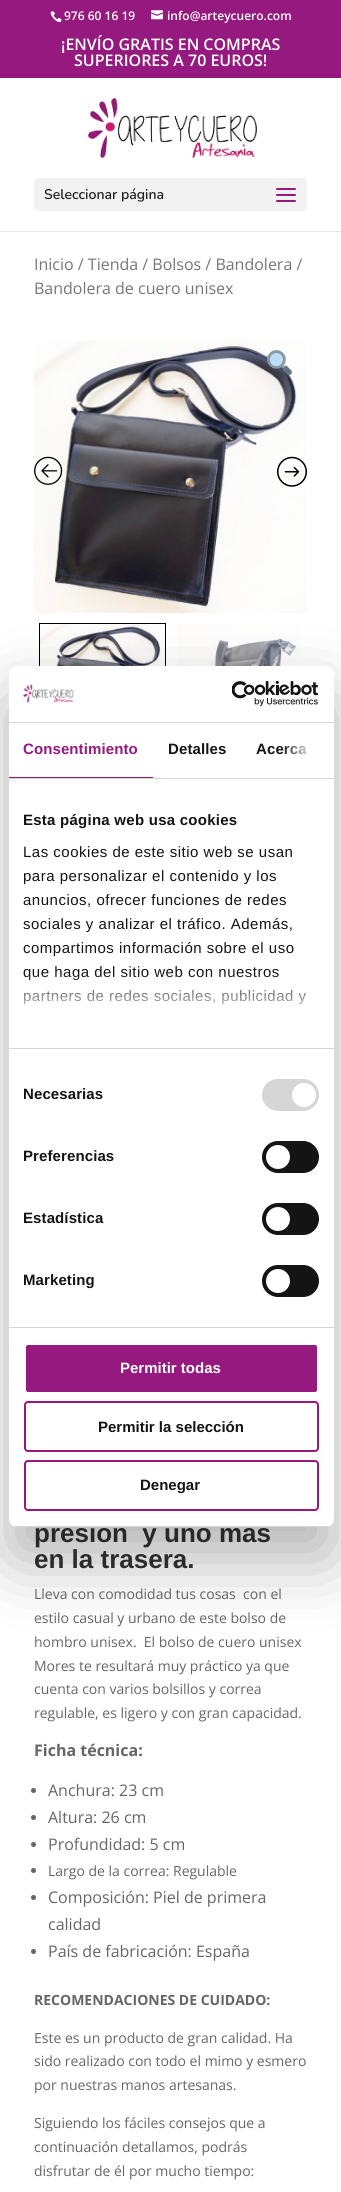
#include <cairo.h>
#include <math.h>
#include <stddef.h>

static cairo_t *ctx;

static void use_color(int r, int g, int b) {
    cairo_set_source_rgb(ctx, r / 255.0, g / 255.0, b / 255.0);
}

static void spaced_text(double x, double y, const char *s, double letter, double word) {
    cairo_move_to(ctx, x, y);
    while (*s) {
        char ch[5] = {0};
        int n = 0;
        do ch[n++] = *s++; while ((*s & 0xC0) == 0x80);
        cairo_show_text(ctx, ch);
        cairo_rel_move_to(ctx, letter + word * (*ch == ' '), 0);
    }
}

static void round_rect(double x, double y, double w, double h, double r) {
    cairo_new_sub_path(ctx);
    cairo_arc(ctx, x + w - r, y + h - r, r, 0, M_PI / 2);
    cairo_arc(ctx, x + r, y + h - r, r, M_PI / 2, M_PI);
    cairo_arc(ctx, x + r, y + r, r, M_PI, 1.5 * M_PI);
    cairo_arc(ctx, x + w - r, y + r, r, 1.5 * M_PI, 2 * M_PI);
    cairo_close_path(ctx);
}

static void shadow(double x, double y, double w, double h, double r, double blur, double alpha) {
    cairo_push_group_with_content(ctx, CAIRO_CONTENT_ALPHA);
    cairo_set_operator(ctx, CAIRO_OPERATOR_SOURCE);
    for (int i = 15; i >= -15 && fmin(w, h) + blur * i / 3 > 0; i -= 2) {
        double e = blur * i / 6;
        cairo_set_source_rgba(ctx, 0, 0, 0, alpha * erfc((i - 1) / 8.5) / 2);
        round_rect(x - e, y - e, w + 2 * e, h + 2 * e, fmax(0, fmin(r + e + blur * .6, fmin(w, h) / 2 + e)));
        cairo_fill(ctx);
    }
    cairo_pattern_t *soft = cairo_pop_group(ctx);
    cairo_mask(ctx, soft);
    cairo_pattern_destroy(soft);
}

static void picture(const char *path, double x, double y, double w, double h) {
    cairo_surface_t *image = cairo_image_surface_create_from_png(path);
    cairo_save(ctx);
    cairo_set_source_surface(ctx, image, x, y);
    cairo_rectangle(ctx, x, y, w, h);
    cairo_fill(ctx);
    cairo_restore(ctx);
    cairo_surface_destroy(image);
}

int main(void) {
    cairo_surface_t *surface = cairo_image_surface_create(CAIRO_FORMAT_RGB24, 341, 2192);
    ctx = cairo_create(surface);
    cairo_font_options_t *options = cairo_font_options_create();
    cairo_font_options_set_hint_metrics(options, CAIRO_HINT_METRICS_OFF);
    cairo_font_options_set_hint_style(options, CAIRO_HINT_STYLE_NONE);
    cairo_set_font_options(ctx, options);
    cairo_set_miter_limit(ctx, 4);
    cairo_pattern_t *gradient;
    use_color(255, 255, 255);
    cairo_paint(ctx);
    use_color(149, 25, 126);
    cairo_rectangle(ctx, 0, 0, 341, 78);
    cairo_fill(ctx);
    picture("img1.png", 50, 11, 12, 12);
    cairo_select_font_face(ctx, "Open Sans SemiBold", CAIRO_FONT_SLANT_NORMAL, CAIRO_FONT_WEIGHT_NORMAL);
    cairo_set_font_size(ctx, 12);
    use_color(255, 255, 255);
    cairo_move_to(ctx, 64, 20);
    cairo_show_text(ctx, "976 60 16 19");
    picture("img2.png", 151, 10, 12, 10);
    cairo_move_to(ctx, 167, 20);
    cairo_show_text(ctx, "info@arteycuero.com");
    cairo_set_font_size(ctx, 16);
    cairo_move_to(ctx, 61, 50);
    cairo_show_text(ctx, "¡ENVÍO GRATIS EN COMPRAS");
    cairo_move_to(ctx, 74, 66);
    cairo_show_text(ctx, "SUPERIORES A 70 EUROS!");
    use_color(230, 230, 230);
    cairo_rectangle(ctx, 0, 231, 341, 1);
    cairo_fill(ctx);
    picture("img3.png", 88, 98, 169, 60);
    use_color(242, 242, 242);
    round_rect(34, 178, 273, 33, 5);
    cairo_fill(ctx);
    cairo_select_font_face(ctx, "Nunito SemiBold", CAIRO_FONT_SLANT_NORMAL, CAIRO_FONT_WEIGHT_NORMAL);
    cairo_set_font_size(ctx, 14);
    use_color(31, 31, 31);
    cairo_move_to(ctx, 44, 199);
    cairo_show_text(ctx, "Seleccionar página");
    picture("img4.png", 276, 188, 20, 14);
    cairo_select_font_face(ctx, "Open Sans", CAIRO_FONT_SLANT_NORMAL, CAIRO_FONT_WEIGHT_NORMAL);
    cairo_set_font_size(ctx, 16);
    use_color(118, 118, 118);
    cairo_move_to(ctx, 34, 270);
    cairo_show_text(ctx, "Inicio / Tienda / Bolsos / Bandolera /");
    cairo_move_to(ctx, 34, 294);
    cairo_show_text(ctx, "Bandolera de cuero unisex");
    picture("img5.png", 34, 340, 273, 273);
    picture("img6.png", 267, 350, 25, 25);
    picture("img7.png", 34, 456, 29, 29);
    picture("img8.png", 277, 456, 30, 31);
    cairo_rectangle(ctx, 39.5, 623.5, 126, 126);
    use_color(0, 0, 0);
    cairo_set_line_width(ctx, 1);
    cairo_stroke(ctx);
    picture("img9.png", 40, 624, 125, 42);
    picture("img10.png", 177, 624, 125, 42);
    cairo_select_font_face(ctx, "Liberation Sans", CAIRO_FONT_SLANT_NORMAL, CAIRO_FONT_WEIGHT_BOLD);
    cairo_set_font_size(ctx, 26);
    use_color(51, 51, 51);
    cairo_move_to(ctx, 34, 1542);
    cairo_show_text(ctx, "presión  y uno mas");
    cairo_move_to(ctx, 34, 1568);
    cairo_show_text(ctx, "en la trasera.");
    cairo_select_font_face(ctx, "Open Sans", CAIRO_FONT_SLANT_NORMAL, CAIRO_FONT_WEIGHT_NORMAL);
    cairo_set_font_size(ctx, 14);
    use_color(102, 102, 102);
    cairo_move_to(ctx, 34, 1599);
    cairo_show_text(ctx, "Lleva con comodidad tus cosas  con el");
    cairo_move_to(ctx, 34, 1623);
    cairo_show_text(ctx, "estilo casual y urbano de este bolso de");
    cairo_move_to(ctx, 34, 1647);
    cairo_show_text(ctx, "hombro unisex.  El bolso de cuero unisex");
    cairo_move_to(ctx, 34, 1671);
    cairo_show_text(ctx, "Mores te resultará muy práctico ya que");
    cairo_move_to(ctx, 34, 1694);
    cairo_show_text(ctx, "cuenta con varios bolsillos y correa");
    cairo_move_to(ctx, 34, 1718);
    cairo_show_text(ctx, "regulable, es ligero y con gran capacidad.");
    cairo_select_font_face(ctx, "Open Sans", CAIRO_FONT_SLANT_NORMAL, CAIRO_FONT_WEIGHT_BOLD);
    cairo_set_font_size(ctx, 16);
    cairo_move_to(ctx, 34, 1756);
    cairo_show_text(ctx, "Ficha técnica:");
    cairo_new_path(ctx);
    cairo_arc(ctx, 33.5, 1790.5, 2.5, 0, 2 * M_PI);
    cairo_fill(ctx);
    cairo_select_font_face(ctx, "Open Sans", CAIRO_FONT_SLANT_NORMAL, CAIRO_FONT_WEIGHT_NORMAL);
    cairo_move_to(ctx, 48, 1796);
    cairo_show_text(ctx, "Anchura: 23 cm");
    cairo_new_path(ctx);
    cairo_arc(ctx, 33.5, 1817.5, 2.5, 0, 2 * M_PI);
    cairo_fill(ctx);
    cairo_move_to(ctx, 48, 1823);
    cairo_show_text(ctx, "Altura: 26 cm");
    cairo_new_path(ctx);
    cairo_arc(ctx, 33.5, 1844.5, 2.5, 0, 2 * M_PI);
    cairo_fill(ctx);
    cairo_move_to(ctx, 48, 1850);
    cairo_show_text(ctx, "Profundidad: 5 cm");
    cairo_new_path(ctx);
    cairo_arc(ctx, 33.5, 1870.5, 2.5, 0, 2 * M_PI);
    cairo_fill(ctx);
    cairo_set_font_size(ctx, 14);
    cairo_move_to(ctx, 48, 1876);
    cairo_show_text(ctx, "Largo de la correa: Regulable");
    cairo_new_path(ctx);
    cairo_arc(ctx, 33.5, 1897.5, 2.5, 0, 2 * M_PI);
    cairo_fill(ctx);
    cairo_set_font_size(ctx, 16);
    cairo_move_to(ctx, 48, 1903);
    cairo_show_text(ctx, "Composición: Piel de primera");
    cairo_move_to(ctx, 48, 1930);
    cairo_show_text(ctx, "calidad");
    cairo_new_path(ctx);
    cairo_arc(ctx, 33.5, 1951.5, 2.5, 0, 2 * M_PI);
    cairo_fill(ctx);
    cairo_move_to(ctx, 48, 1957);
    cairo_show_text(ctx, "País de fabricación: España");
    cairo_select_font_face(ctx, "Open Sans", CAIRO_FONT_SLANT_NORMAL, CAIRO_FONT_WEIGHT_BOLD);
    cairo_set_font_size(ctx, 14);
    cairo_move_to(ctx, 34, 2005);
    cairo_show_text(ctx, "RECOMENDACIONES DE CUIDADO:");
    cairo_select_font_face(ctx, "Open Sans", CAIRO_FONT_SLANT_NORMAL, CAIRO_FONT_WEIGHT_NORMAL);
    cairo_move_to(ctx, 34, 2043);
    cairo_show_text(ctx, "Este es un producto de gran calidad. Ha");
    cairo_move_to(ctx, 34, 2066);
    cairo_show_text(ctx, "sido realizado con todo el mimo y esmero");
    cairo_move_to(ctx, 34, 2090);
    cairo_show_text(ctx, "por nuestras manos artesanas.");
    cairo_move_to(ctx, 34, 2128);
    cairo_show_text(ctx, "Siguiendo los fáciles consejos que a");
    cairo_move_to(ctx, 34, 2152);
    cairo_show_text(ctx, "continuación detallamos, podrás");
    cairo_move_to(ctx, 34, 2176);
    cairo_show_text(ctx, "disfrutar de él por mucho tiempo:");
    use_color(0, 0, 0);
    shadow(9, 698, 325, 861, 8, 34, 0.3);
    use_color(255, 255, 255);
    round_rect(9, 666, 325, 861, 8);
    cairo_fill(ctx);
    use_color(214, 214, 214);
    cairo_rectangle(ctx, 9, 722, 325, 1);
    cairo_fill(ctx);
    picture("img11.png", 23, 684, 51, 19);
    picture("img12.png", 232, 681, 87, 26);
    cairo_rectangle(ctx, 9, 778, 325, 1);
    cairo_fill(ctx);
    use_color(149, 25, 126);
    cairo_rectangle(ctx, 9, 777, 144, 1);
    cairo_fill(ctx);
    cairo_select_font_face(ctx, "Liberation Sans", CAIRO_FONT_SLANT_NORMAL, CAIRO_FONT_WEIGHT_BOLD);
    cairo_set_font_size(ctx, 15);
    spaced_text(23, 754, "Consentimiento", 0.1, 0);
    use_color(20, 20, 20);
    spaced_text(168, 754, "Detalles", 0.1, 0);
    spaced_text(256, 754, "Acerca", 0.1, 0);
    gradient = cairo_pattern_create_linear(334, 750, 281, 750);
    cairo_pattern_add_color_stop_rgba(gradient, 0, 1, 1, 1, 1);
    cairo_pattern_add_color_stop_rgba(gradient, 0.5, 1, 1, 1, 0.8);
    cairo_pattern_add_color_stop_rgba(gradient, 1, 1, 1, 1, 0);
    cairo_set_source(ctx, gradient);
    cairo_pattern_destroy(gradient);
    cairo_rectangle(ctx, 282, 745, 25, 10);
    cairo_fill(ctx);
    use_color(214, 214, 214);
    cairo_rectangle(ctx, 9, 1048, 325, 1);
    cairo_fill(ctx);
    use_color(20, 20, 20);
    spaced_text(23, 825, "Esta página web usa cookies", 0.25, 0);
    cairo_select_font_face(ctx, "Liberation Sans", CAIRO_FONT_SLANT_NORMAL, CAIRO_FONT_WEIGHT_NORMAL);
    spaced_text(23, 857, "Las cookies de este sitio web se usan", 0.5, 0);
    spaced_text(23, 881, "para personalizar el contenido y los", 0.5, 0);
    spaced_text(23, 905, "anuncios, ofrecer funciones de redes", 0.5, 0);
    spaced_text(23, 929, "sociales y analizar el tráfico. Además,", 0.5, 0);
    spaced_text(23, 953, "compartimos información sobre el uso", 0.5, 0);
    spaced_text(23, 977, "que haga del sitio web con nuestros", 0.5, 0);
    spaced_text(23, 1001, "partners de redes sociales, publicidad y", 0.5, 0);
    gradient = cairo_pattern_create_linear(165, 1048, 165, 973);
    cairo_pattern_add_color_stop_rgba(gradient, 0, 1, 1, 1, 1);
    cairo_pattern_add_color_stop_rgba(gradient, 0.5, 1, 1, 1, 0.8);
    cairo_pattern_add_color_stop_rgba(gradient, 1, 1, 1, 1, 0);
    cairo_set_source(ctx, gradient);
    cairo_pattern_destroy(gradient);
    cairo_rectangle(ctx, 24, 974, 282, 31);
    cairo_fill(ctx);
    use_color(214, 214, 214);
    cairo_rectangle(ctx, 9, 1327, 325, 1);
    cairo_fill(ctx);
    cairo_select_font_face(ctx, "Liberation Sans", CAIRO_FONT_SLANT_NORMAL, CAIRO_FONT_WEIGHT_BOLD);
    use_color(20, 20, 20);
    spaced_text(23, 1099, "Necesarias", 0.1, 0);
    use_color(214, 214, 214);
    round_rect(262, 1079, 57, 32, 16);
    cairo_fill(ctx);
    use_color(255, 255, 255);
    cairo_arc(ctx, 304, 1095, 12, 0, 2 * M_PI);
    cairo_fill(ctx);
    use_color(20, 20, 20);
    spaced_text(23, 1161, "Preferencias", 0.1, 0);
    round_rect(262, 1141, 57, 32, 16);
    cairo_fill(ctx);
    use_color(255, 255, 255);
    cairo_arc(ctx, 278, 1157, 12, 0, 2 * M_PI);
    cairo_fill(ctx);
    use_color(20, 20, 20);
    spaced_text(23, 1223, "Estadística", 0.1, 0);
    round_rect(262, 1203, 57, 32, 16);
    cairo_fill(ctx);
    use_color(255, 255, 255);
    cairo_arc(ctx, 278, 1219, 12, 0, 2 * M_PI);
    cairo_fill(ctx);
    use_color(20, 20, 20);
    spaced_text(23, 1285, "Marketing", 0.1, 0);
    round_rect(262, 1265, 57, 32, 16);
    cairo_fill(ctx);
    use_color(255, 255, 255);
    cairo_arc(ctx, 278, 1281, 12, 0, 2 * M_PI);
    cairo_fill(ctx);
    cairo_save(ctx);
    round_rect(9, 666, 325, 861, 8);
    cairo_clip(ctx);
    use_color(214, 214, 214);
    cairo_rectangle(ctx, 9, 1526, 325, 1);
    cairo_fill(ctx);
    cairo_restore(ctx);
    use_color(149, 25, 126);
    round_rect(25, 1344, 293, 49, 3);
    cairo_fill_preserve(ctx);
    use_color(255, 255, 255);
    cairo_set_line_width(ctx, 2);
    cairo_stroke(ctx);
    cairo_move_to(ctx, 120, 1373);
    cairo_show_text(ctx, "Permitir todas");
    round_rect(25, 1402, 293, 49, 3);
    use_color(149, 25, 126);
    cairo_stroke(ctx);
    use_color(20, 20, 20);
    cairo_move_to(ctx, 98, 1432);
    cairo_show_text(ctx, "Permitir la selección");
    round_rect(25, 1461, 293, 49, 3);
    use_color(149, 25, 126);
    cairo_stroke(ctx);
    use_color(20, 20, 20);
    cairo_move_to(ctx, 140, 1490);
    cairo_show_text(ctx, "Denegar");
    cairo_surface_write_to_png(surface, "result.png");
    cairo_font_options_destroy(options);
    cairo_destroy(ctx);
    cairo_surface_destroy(surface);
    return 0;
}
